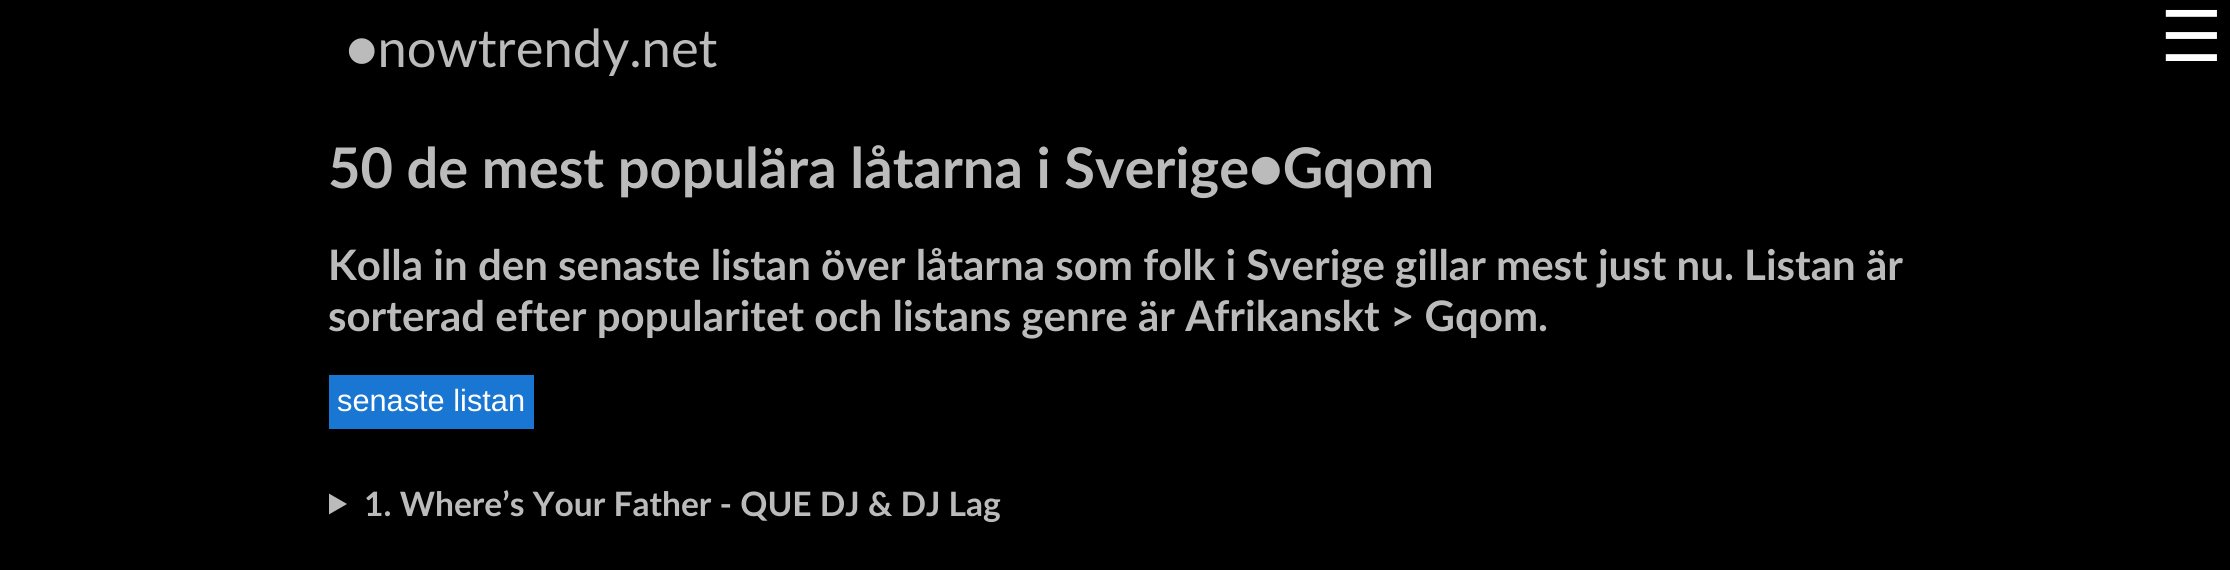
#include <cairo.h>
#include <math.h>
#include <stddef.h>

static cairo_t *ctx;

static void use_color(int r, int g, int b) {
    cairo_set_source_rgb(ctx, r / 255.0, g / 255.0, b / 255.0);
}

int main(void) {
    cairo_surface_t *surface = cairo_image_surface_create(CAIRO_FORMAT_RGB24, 2230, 570);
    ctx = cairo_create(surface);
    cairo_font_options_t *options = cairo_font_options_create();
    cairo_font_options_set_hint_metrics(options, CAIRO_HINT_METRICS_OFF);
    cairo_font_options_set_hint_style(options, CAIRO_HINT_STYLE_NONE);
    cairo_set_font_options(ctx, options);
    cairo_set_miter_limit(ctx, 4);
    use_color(0, 0, 0);
    cairo_paint(ctx);
    cairo_select_font_face(ctx, "Lato", CAIRO_FONT_SLANT_NORMAL, CAIRO_FONT_WEIGHT_NORMAL);
    cairo_set_font_size(ctx, 52.5);
    use_color(187, 187, 187);
    cairo_move_to(ctx, 346, 67);
    cairo_show_text(ctx, "●nowtrendy.net");
    cairo_select_font_face(ctx, "DejaVu Sans", CAIRO_FONT_SLANT_NORMAL, CAIRO_FONT_WEIGHT_NORMAL);
    cairo_set_font_size(ctx, 70);
    use_color(255, 255, 255);
    cairo_move_to(ctx, 2160, 61);
    cairo_show_text(ctx, "☰");
    cairo_select_font_face(ctx, "Lato", CAIRO_FONT_SLANT_NORMAL, CAIRO_FONT_WEIGHT_BOLD);
    cairo_set_font_size(ctx, 56);
    use_color(187, 187, 187);
    cairo_move_to(ctx, 328, 188);
    cairo_show_text(ctx, "50 de mest populära låtarna i Sverige●Gqom");
    cairo_set_font_size(ctx, 42);
    cairo_move_to(ctx, 328, 280);
    cairo_show_text(ctx, "Kolla in den senaste listan över låtarna som folk i Sverige gillar mest just nu. Listan är");
    cairo_move_to(ctx, 328, 331);
    cairo_show_text(ctx, "sorterad efter popularitet och listans genre är Afrikanskt > Gqom.");
    use_color(25, 118, 210);
    cairo_rectangle(ctx, 329, 375, 205, 54);
    cairo_fill(ctx);
    cairo_select_font_face(ctx, "Liberation Sans", CAIRO_FONT_SLANT_NORMAL, CAIRO_FONT_WEIGHT_NORMAL);
    cairo_set_font_size(ctx, 30.75);
    use_color(255, 255, 255);
    cairo_move_to(ctx, 337, 411);
    cairo_show_text(ctx, "senaste listan");
    cairo_save(ctx);
    cairo_rectangle(ctx, 329, 483, 1575, 40);
    cairo_clip(ctx);
    use_color(187, 187, 187);
    cairo_new_path(ctx);
    cairo_move_to(ctx, 328, 493);
    cairo_line_to(ctx, 347, 504);
    cairo_line_to(ctx, 328, 515);
    cairo_close_path(ctx);
    cairo_fill(ctx);
    cairo_restore(ctx);
    cairo_select_font_face(ctx, "Lato", CAIRO_FONT_SLANT_NORMAL, CAIRO_FONT_WEIGHT_BOLD);
    cairo_set_font_size(ctx, 33.6);
    use_color(187, 187, 187);
    cairo_move_to(ctx, 364, 516);
    cairo_show_text(ctx, "1. Where’s Your Father - QUE DJ & DJ Lag");
    cairo_surface_write_to_png(surface, "result.png");
    cairo_font_options_destroy(options);
    cairo_destroy(ctx);
    cairo_surface_destroy(surface);
    return 0;
}
